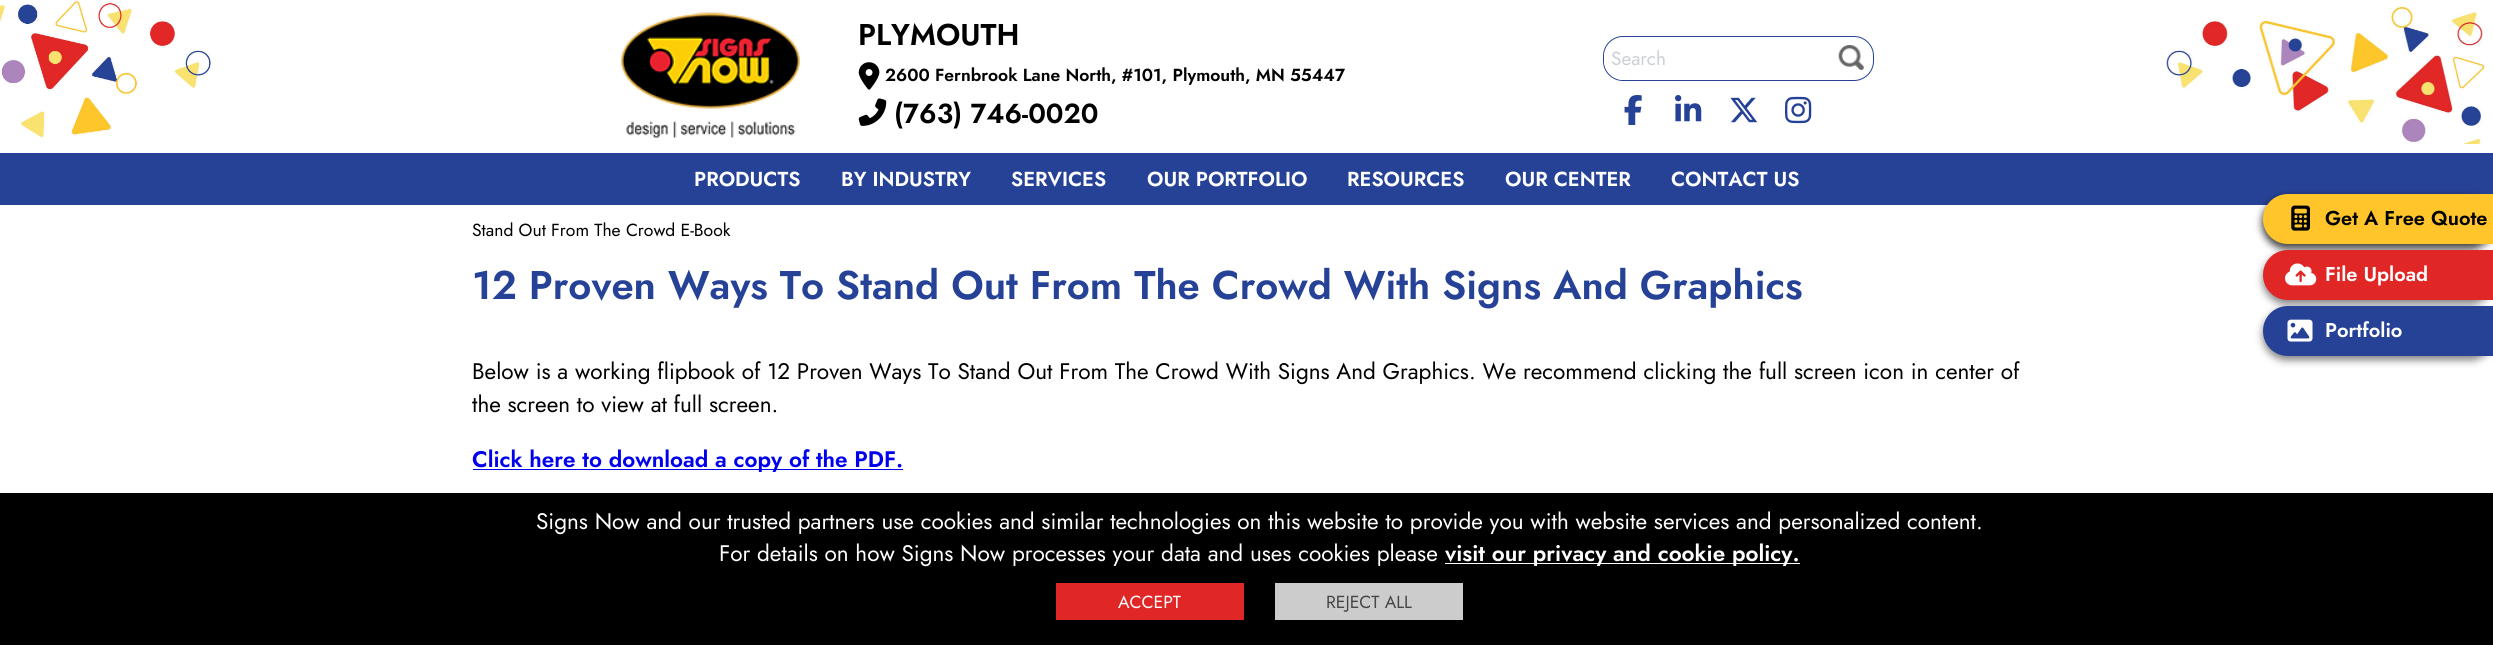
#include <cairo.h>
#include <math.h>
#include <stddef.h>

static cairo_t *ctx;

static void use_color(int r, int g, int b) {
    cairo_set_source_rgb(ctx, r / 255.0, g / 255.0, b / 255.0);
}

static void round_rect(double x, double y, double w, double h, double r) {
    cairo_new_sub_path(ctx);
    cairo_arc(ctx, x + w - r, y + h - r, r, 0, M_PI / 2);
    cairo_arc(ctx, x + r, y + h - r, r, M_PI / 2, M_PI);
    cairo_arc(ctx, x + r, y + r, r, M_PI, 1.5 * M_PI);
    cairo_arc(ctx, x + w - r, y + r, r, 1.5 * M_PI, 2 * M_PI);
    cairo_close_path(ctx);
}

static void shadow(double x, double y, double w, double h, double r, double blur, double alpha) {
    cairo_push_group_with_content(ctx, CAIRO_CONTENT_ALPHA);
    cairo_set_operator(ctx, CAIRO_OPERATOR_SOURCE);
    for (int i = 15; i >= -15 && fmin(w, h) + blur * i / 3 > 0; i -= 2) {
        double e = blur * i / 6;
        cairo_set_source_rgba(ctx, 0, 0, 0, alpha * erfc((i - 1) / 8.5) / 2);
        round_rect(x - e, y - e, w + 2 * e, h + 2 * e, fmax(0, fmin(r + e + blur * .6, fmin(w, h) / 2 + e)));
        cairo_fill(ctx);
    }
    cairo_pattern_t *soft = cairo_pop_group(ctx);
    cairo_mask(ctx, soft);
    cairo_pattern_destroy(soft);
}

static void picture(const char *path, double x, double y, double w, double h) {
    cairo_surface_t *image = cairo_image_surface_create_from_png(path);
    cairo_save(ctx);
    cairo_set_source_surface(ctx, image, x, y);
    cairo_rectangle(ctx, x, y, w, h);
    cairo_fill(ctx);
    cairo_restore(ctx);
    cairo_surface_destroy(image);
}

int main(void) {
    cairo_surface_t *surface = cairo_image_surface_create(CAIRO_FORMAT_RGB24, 2493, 645);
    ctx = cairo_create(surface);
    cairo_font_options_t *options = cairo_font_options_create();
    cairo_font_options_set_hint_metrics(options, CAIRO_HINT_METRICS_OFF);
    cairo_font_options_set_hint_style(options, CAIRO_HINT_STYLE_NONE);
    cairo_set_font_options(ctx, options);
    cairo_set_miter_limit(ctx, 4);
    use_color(255, 255, 255);
    cairo_paint(ctx);
    picture("img1.png", 0, 0, 212, 139);
    picture("img2.png", 2165, 6, 320, 138);
    picture("img3.png", 621, 12, 179, 126);
    cairo_select_font_face(ctx, "Jost SemiBold", CAIRO_FONT_SLANT_NORMAL, CAIRO_FONT_WEIGHT_NORMAL);
    cairo_set_font_size(ctx, 30);
    use_color(0, 0, 0);
    cairo_move_to(ctx, 858, 45);
    cairo_show_text(ctx, "PLYMOUTH");
    picture("img4.png", 858, 62, 22, 28);
    cairo_set_font_size(ctx, 17.5);
    cairo_move_to(ctx, 885, 81);
    cairo_show_text(ctx, "2600 Fernbrook Lane North, #101, Plymouth, MN 55447");
    picture("img5.png", 858, 98, 29, 28);
    cairo_set_font_size(ctx, 27.5);
    cairo_move_to(ctx, 894, 123);
    cairo_show_text(ctx, "(763) 746-0020");
    round_rect(1603.5, 36.5, 270, 44, 19.5);
    use_color(38, 66, 151);
    cairo_set_line_width(ctx, 1);
    cairo_stroke(ctx);
    cairo_save(ctx);
    round_rect(1604, 38, 269, 42, 19);
    cairo_clip(ctx);
    use_color(255, 255, 255);
    round_rect(1604, 38, 232, 42, 20);
    cairo_fill(ctx);
    cairo_restore(ctx);
    cairo_select_font_face(ctx, "Jost", CAIRO_FONT_SLANT_NORMAL, CAIRO_FONT_WEIGHT_NORMAL);
    cairo_set_font_size(ctx, 19);
    use_color(203, 208, 211);
    cairo_move_to(ctx, 1611, 65);
    cairo_show_text(ctx, "Search");
    picture("img6.png", 1838, 45, 26, 25);
    picture("img7.png", 1624, 95, 18, 30);
    picture("img8.png", 1675, 95, 27, 27);
    picture("img9.png", 1730, 97, 28, 26);
    picture("img10.png", 1785, 96, 27, 28);
    use_color(38, 66, 151);
    cairo_rectangle(ctx, 0, 153, 2493, 52);
    cairo_fill(ctx);
    cairo_select_font_face(ctx, "Jost SemiBold", CAIRO_FONT_SLANT_NORMAL, CAIRO_FONT_WEIGHT_NORMAL);
    cairo_set_font_size(ctx, 20.25);
    use_color(255, 255, 255);
    cairo_move_to(ctx, 694, 186);
    cairo_show_text(ctx, "PRODUCTS");
    cairo_move_to(ctx, 841, 186);
    cairo_show_text(ctx, "BY INDUSTRY");
    cairo_move_to(ctx, 1011, 186);
    cairo_show_text(ctx, "SERVICES");
    cairo_move_to(ctx, 1147, 186);
    cairo_show_text(ctx, "OUR PORTFOLIO");
    cairo_move_to(ctx, 1347, 186);
    cairo_show_text(ctx, "RESOURCES");
    cairo_move_to(ctx, 1505, 186);
    cairo_show_text(ctx, "OUR CENTER");
    cairo_move_to(ctx, 1671, 186);
    cairo_show_text(ctx, "CONTACT US");
    cairo_select_font_face(ctx, "Jost", CAIRO_FONT_SLANT_NORMAL, CAIRO_FONT_WEIGHT_NORMAL);
    cairo_set_font_size(ctx, 17.5);
    use_color(0, 0, 0);
    cairo_move_to(ctx, 472, 236);
    cairo_show_text(ctx, "Stand Out From The Crowd E-Book");
    cairo_select_font_face(ctx, "Jost SemiBold", CAIRO_FONT_SLANT_NORMAL, CAIRO_FONT_WEIGHT_NORMAL);
    cairo_set_font_size(ctx, 40);
    use_color(38, 66, 151);
    cairo_move_to(ctx, 472, 299);
    cairo_show_text(ctx, "12 Proven Ways To Stand Out From The Crowd With Signs And Graphics");
    cairo_select_font_face(ctx, "Jost", CAIRO_FONT_SLANT_NORMAL, CAIRO_FONT_WEIGHT_NORMAL);
    cairo_set_font_size(ctx, 22.5);
    use_color(0, 0, 0);
    cairo_move_to(ctx, 472, 379);
    cairo_show_text(ctx, "Below is a working flipbook of 12 Proven Ways To Stand Out From The Crowd With Signs And Graphics. We recommend clicking the full screen icon in center of");
    cairo_move_to(ctx, 472, 412);
    cairo_show_text(ctx, "the screen to view at full screen.");
    use_color(0, 0, 238);
    cairo_rectangle(ctx, 473, 469, 430, 1);
    cairo_fill(ctx);
    cairo_select_font_face(ctx, "Jost SemiBold", CAIRO_FONT_SLANT_NORMAL, CAIRO_FONT_WEIGHT_NORMAL);
    cairo_move_to(ctx, 472, 467);
    cairo_show_text(ctx, "Click here to download a copy of the PDF.");
    use_color(0, 0, 0);
    shadow(2263, 198, 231, 50, 25, 4, 0.5);
    shadow(2263, 198, 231, 50, 25, 4, 0.5);
    use_color(255, 197, 43);
    cairo_new_path(ctx);
    cairo_move_to(ctx, 2288, 194);
    cairo_line_to(ctx, 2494, 194);
    cairo_line_to(ctx, 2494, 244);
    cairo_line_to(ctx, 2288, 244);
    cairo_curve_to(ctx, 2274, 244, 2263, 233, 2263, 219);
    cairo_curve_to(ctx, 2263, 205, 2274, 194, 2288, 194);
    cairo_close_path(ctx);
    cairo_fill(ctx);
    picture("img11.png", 2291, 205, 19, 26);
    cairo_set_font_size(ctx, 20);
    use_color(0, 0, 0);
    cairo_move_to(ctx, 2325, 225);
    cairo_show_text(ctx, "Get A Free Quote");
    use_color(0, 0, 0);
    shadow(2263, 254, 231, 50, 25, 4, 0.5);
    use_color(225, 39, 38);
    cairo_new_path(ctx);
    cairo_move_to(ctx, 2288, 250);
    cairo_line_to(ctx, 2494, 250);
    cairo_line_to(ctx, 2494, 300);
    cairo_line_to(ctx, 2288, 300);
    cairo_curve_to(ctx, 2274, 300, 2263, 289, 2263, 275);
    cairo_curve_to(ctx, 2263, 261, 2274, 250, 2288, 250);
    cairo_close_path(ctx);
    cairo_fill(ctx);
    picture("img12.png", 2285, 263, 32, 23);
    use_color(255, 255, 255);
    cairo_move_to(ctx, 2325, 281);
    cairo_show_text(ctx, "File Upload");
    use_color(0, 0, 0);
    shadow(2263, 310, 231, 50, 25, 4, 0.5);
    use_color(38, 66, 151);
    cairo_new_path(ctx);
    cairo_move_to(ctx, 2288, 306);
    cairo_line_to(ctx, 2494, 306);
    cairo_line_to(ctx, 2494, 356);
    cairo_line_to(ctx, 2288, 356);
    cairo_curve_to(ctx, 2274, 356, 2263, 345, 2263, 331);
    cairo_curve_to(ctx, 2263, 317, 2274, 306, 2288, 306);
    cairo_close_path(ctx);
    cairo_fill(ctx);
    picture("img13.png", 2287, 319, 26, 23);
    use_color(255, 255, 255);
    cairo_move_to(ctx, 2325, 337);
    cairo_show_text(ctx, "Portfolio");
    use_color(0, 0, 0);
    cairo_rectangle(ctx, 0, 493, 2493, 152);
    cairo_fill(ctx);
    cairo_select_font_face(ctx, "Jost", CAIRO_FONT_SLANT_NORMAL, CAIRO_FONT_WEIGHT_NORMAL);
    cairo_set_font_size(ctx, 22.5);
    use_color(255, 255, 255);
    cairo_move_to(ctx, 536, 529);
    cairo_show_text(ctx, "Signs Now and our trusted partners use cookies and similar technologies on this website to provide you with website services and personalized content.");
    cairo_move_to(ctx, 719, 561);
    cairo_show_text(ctx, "For details on how Signs Now processes your data and uses cookies please");
    cairo_rectangle(ctx, 1445, 563, 355, 1);
    cairo_fill(ctx);
    cairo_select_font_face(ctx, "Jost SemiBold", CAIRO_FONT_SLANT_NORMAL, CAIRO_FONT_WEIGHT_NORMAL);
    cairo_move_to(ctx, 1445, 561);
    cairo_show_text(ctx, "visit our privacy and cookie policy.");
    use_color(225, 39, 38);
    cairo_rectangle(ctx, 1056, 583, 188, 37);
    cairo_fill(ctx);
    cairo_select_font_face(ctx, "Jost", CAIRO_FONT_SLANT_NORMAL, CAIRO_FONT_WEIGHT_NORMAL);
    cairo_set_font_size(ctx, 17.5);
    use_color(255, 255, 255);
    cairo_move_to(ctx, 1118, 608);
    cairo_show_text(ctx, "ACCEPT");
    use_color(204, 204, 204);
    cairo_rectangle(ctx, 1275, 583, 188, 37);
    cairo_fill(ctx);
    use_color(70, 70, 70);
    cairo_move_to(ctx, 1326, 608);
    cairo_show_text(ctx, "REJECT ALL");
    cairo_surface_write_to_png(surface, "result.png");
    cairo_font_options_destroy(options);
    cairo_destroy(ctx);
    cairo_surface_destroy(surface);
    return 0;
}
